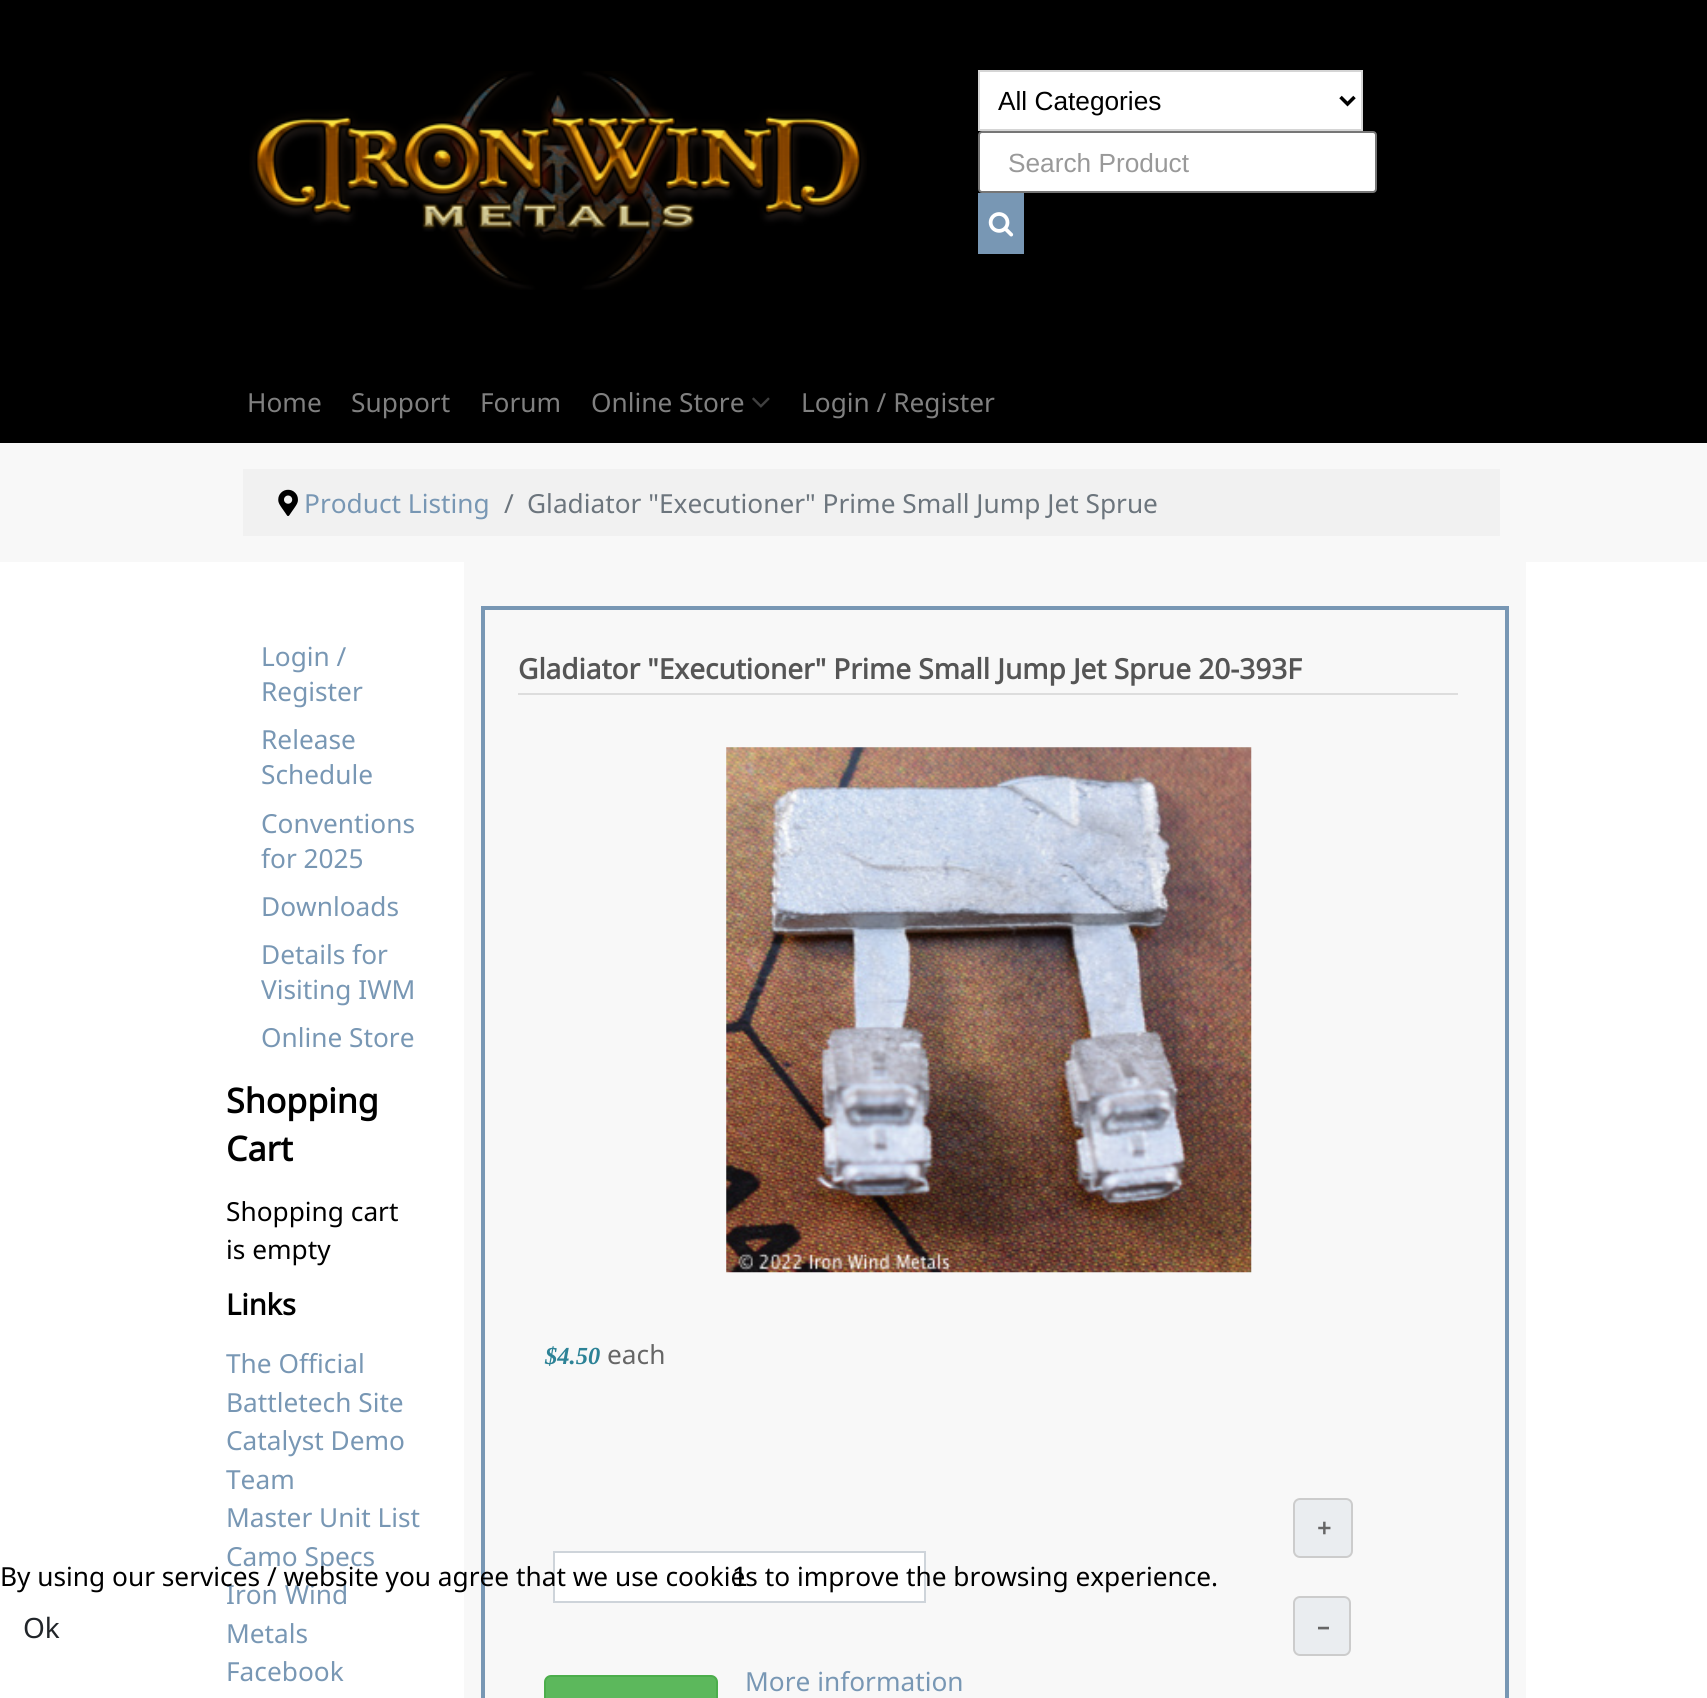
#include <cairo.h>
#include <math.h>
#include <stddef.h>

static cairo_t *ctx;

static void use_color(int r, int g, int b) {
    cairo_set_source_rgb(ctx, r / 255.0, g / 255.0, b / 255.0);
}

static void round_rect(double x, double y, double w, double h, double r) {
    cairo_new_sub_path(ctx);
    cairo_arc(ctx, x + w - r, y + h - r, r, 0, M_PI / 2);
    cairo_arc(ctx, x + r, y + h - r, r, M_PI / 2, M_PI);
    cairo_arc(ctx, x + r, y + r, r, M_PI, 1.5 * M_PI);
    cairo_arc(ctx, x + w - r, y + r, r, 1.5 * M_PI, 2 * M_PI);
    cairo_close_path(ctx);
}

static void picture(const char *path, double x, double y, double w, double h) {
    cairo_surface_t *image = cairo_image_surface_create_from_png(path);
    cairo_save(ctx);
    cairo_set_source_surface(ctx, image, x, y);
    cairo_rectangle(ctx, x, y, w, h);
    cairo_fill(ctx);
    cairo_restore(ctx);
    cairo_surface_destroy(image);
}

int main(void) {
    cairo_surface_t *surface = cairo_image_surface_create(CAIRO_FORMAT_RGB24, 1707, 1698);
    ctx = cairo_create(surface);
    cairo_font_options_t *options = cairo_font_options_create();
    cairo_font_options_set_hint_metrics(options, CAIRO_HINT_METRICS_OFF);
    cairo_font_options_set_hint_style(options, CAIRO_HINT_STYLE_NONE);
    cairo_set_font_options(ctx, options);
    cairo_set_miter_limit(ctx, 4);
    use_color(255, 255, 255);
    cairo_paint(ctx);
    use_color(0, 0, 0);
    cairo_rectangle(ctx, 0, 0, 1707, 443);
    cairo_fill(ctx);
    picture("img1.png", 249, 71, 618, 219);
    use_color(255, 255, 255);
    cairo_rectangle(ctx, 979, 71, 383, 59);
    cairo_fill_preserve(ctx);
    use_color(213, 213, 213);
    cairo_stroke(ctx);
    cairo_new_path(ctx);
    cairo_move_to(ctx, 1340.5, 97);
    cairo_line_to(ctx, 1347.5, 104);
    cairo_line_to(ctx, 1354.5, 97);
    use_color(0, 0, 0);
    cairo_set_line_width(ctx, 3.5);
    cairo_stroke(ctx);
    cairo_select_font_face(ctx, "Liberation Sans", CAIRO_FONT_SLANT_NORMAL, CAIRO_FONT_WEIGHT_NORMAL);
    cairo_set_font_size(ctx, 26.25);
    cairo_move_to(ctx, 998, 110);
    cairo_show_text(ctx, "All Categories");
    use_color(255, 255, 255);
    round_rect(979, 132, 397, 60, 3);
    cairo_fill_preserve(ctx);
    use_color(118, 118, 118);
    cairo_set_line_width(ctx, 2);
    cairo_stroke(ctx);
    use_color(153, 153, 153);
    cairo_move_to(ctx, 1008, 172);
    cairo_show_text(ctx, "Search Product");
    use_color(120, 151, 180);
    cairo_rectangle(ctx, 978, 193, 46, 61);
    cairo_fill(ctx);
    picture("img2.png", 988, 212, 26, 25);
    cairo_select_font_face(ctx, "Noto Sans", CAIRO_FONT_SLANT_NORMAL, CAIRO_FONT_WEIGHT_NORMAL);
    use_color(128, 128, 128);
    cairo_move_to(ctx, 247, 412);
    cairo_show_text(ctx, "Home");
    cairo_move_to(ctx, 351, 412);
    cairo_show_text(ctx, "Support");
    cairo_move_to(ctx, 480, 412);
    cairo_show_text(ctx, "Forum");
    cairo_move_to(ctx, 591, 412);
    cairo_show_text(ctx, "Online Store");
    picture("img3.png", 752, 397, 18, 11);
    cairo_move_to(ctx, 801, 412);
    cairo_show_text(ctx, "Login / Register");
    use_color(248, 248, 248);
    cairo_rectangle(ctx, 0, 443, 1707, 119);
    cairo_fill(ctx);
    use_color(241, 241, 241);
    cairo_rectangle(ctx, 243, 469, 1257, 67);
    cairo_fill(ctx);
    picture("img4.png", 278, 489, 20, 27);
    use_color(120, 151, 180);
    cairo_move_to(ctx, 304, 513);
    cairo_show_text(ctx, "Product Listing");
    use_color(108, 117, 125);
    cairo_move_to(ctx, 504, 513);
    cairo_show_text(ctx, "/");
    cairo_move_to(ctx, 527, 513);
    cairo_show_text(ctx, "Gladiator \"Executioner\" Prime Small Jump Jet Sprue");
    use_color(120, 151, 180);
    cairo_move_to(ctx, 261, 666);
    cairo_show_text(ctx, "Login /");
    cairo_move_to(ctx, 261, 701);
    cairo_show_text(ctx, "Register");
    cairo_move_to(ctx, 261, 749);
    cairo_show_text(ctx, "Release");
    cairo_move_to(ctx, 261, 784);
    cairo_show_text(ctx, "Schedule");
    cairo_move_to(ctx, 261, 833);
    cairo_show_text(ctx, "Conventions");
    cairo_move_to(ctx, 261, 868);
    cairo_show_text(ctx, "for 2025");
    cairo_move_to(ctx, 261, 916);
    cairo_show_text(ctx, "Downloads");
    cairo_move_to(ctx, 261, 964);
    cairo_show_text(ctx, "Details for");
    cairo_move_to(ctx, 261, 999);
    cairo_show_text(ctx, "Visiting IWM");
    cairo_move_to(ctx, 261, 1047);
    cairo_show_text(ctx, "Online Store");
    cairo_select_font_face(ctx, "Noto Sans", CAIRO_FONT_SLANT_NORMAL, CAIRO_FONT_WEIGHT_BOLD);
    cairo_set_font_size(ctx, 34);
    use_color(0, 0, 0);
    cairo_move_to(ctx, 226, 1113);
    cairo_show_text(ctx, "Shopping");
    cairo_move_to(ctx, 226, 1161);
    cairo_show_text(ctx, "Cart");
    cairo_select_font_face(ctx, "Noto Sans", CAIRO_FONT_SLANT_NORMAL, CAIRO_FONT_WEIGHT_NORMAL);
    cairo_set_font_size(ctx, 26.25);
    cairo_move_to(ctx, 226, 1221);
    cairo_show_text(ctx, "Shopping cart");
    cairo_move_to(ctx, 226, 1259);
    cairo_show_text(ctx, "is empty");
    cairo_select_font_face(ctx, "Noto Sans", CAIRO_FONT_SLANT_NORMAL, CAIRO_FONT_WEIGHT_BOLD);
    cairo_set_font_size(ctx, 29);
    cairo_move_to(ctx, 226, 1315);
    cairo_show_text(ctx, "Links");
    cairo_select_font_face(ctx, "Noto Sans", CAIRO_FONT_SLANT_NORMAL, CAIRO_FONT_WEIGHT_NORMAL);
    cairo_set_font_size(ctx, 26.25);
    use_color(120, 151, 180);
    cairo_move_to(ctx, 226, 1373);
    cairo_show_text(ctx, "The Official");
    cairo_move_to(ctx, 226, 1412);
    cairo_show_text(ctx, "Battletech Site");
    cairo_move_to(ctx, 226, 1450);
    cairo_show_text(ctx, "Catalyst Demo");
    cairo_move_to(ctx, 226, 1489);
    cairo_show_text(ctx, "Team");
    cairo_move_to(ctx, 226, 1527);
    cairo_show_text(ctx, "Master Unit List");
    cairo_move_to(ctx, 226, 1566);
    cairo_show_text(ctx, "Camo Specs");
    cairo_move_to(ctx, 226, 1604);
    cairo_show_text(ctx, "Iron Wind");
    cairo_move_to(ctx, 226, 1643);
    cairo_show_text(ctx, "Metals");
    cairo_move_to(ctx, 226, 1681);
    cairo_show_text(ctx, "Facebook");
    use_color(248, 248, 248);
    cairo_rectangle(ctx, 464, 562, 1062, 1136);
    cairo_fill(ctx);
    cairo_rectangle(ctx, 483, 608, 1024, 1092);
    use_color(120, 151, 180);
    cairo_set_line_width(ctx, 4);
    cairo_stroke(ctx);
    use_color(221, 221, 221);
    cairo_rectangle(ctx, 518, 693, 940, 2);
    cairo_fill(ctx);
    cairo_select_font_face(ctx, "Noto Sans", CAIRO_FONT_SLANT_NORMAL, CAIRO_FONT_WEIGHT_BOLD);
    cairo_set_font_size(ctx, 28);
    use_color(85, 85, 85);
    cairo_move_to(ctx, 518, 679);
    cairo_show_text(ctx, "Gladiator \"Executioner\" Prime Small Jump Jet Sprue 20-393F");
    picture("img5.png", 726, 747, 526, 526);
    cairo_select_font_face(ctx, "Liberation Serif", CAIRO_FONT_SLANT_ITALIC, CAIRO_FONT_WEIGHT_BOLD);
    cairo_set_font_size(ctx, 24.5);
    use_color(44, 130, 150);
    cairo_move_to(ctx, 545, 1364);
    cairo_show_text(ctx, "$4.50");
    cairo_select_font_face(ctx, "Noto Sans", CAIRO_FONT_SLANT_NORMAL, CAIRO_FONT_WEIGHT_NORMAL);
    cairo_set_font_size(ctx, 26.25);
    use_color(102, 102, 102);
    cairo_move_to(ctx, 607, 1364);
    cairo_show_text(ctx, "each");
    use_color(234, 237, 240);
    round_rect(1294, 1499, 58, 58, 6);
    cairo_fill_preserve(ctx);
    use_color(204, 204, 204);
    cairo_set_line_width(ctx, 2);
    cairo_stroke(ctx);
    cairo_select_font_face(ctx, "Noto Sans", CAIRO_FONT_SLANT_NORMAL, CAIRO_FONT_WEIGHT_BOLD);
    cairo_set_font_size(ctx, 24.5);
    use_color(102, 102, 102);
    cairo_move_to(ctx, 1317, 1537);
    cairo_show_text(ctx, "+");
    use_color(255, 255, 255);
    cairo_rectangle(ctx, 554, 1552, 371, 50);
    cairo_fill_preserve(ctx);
    use_color(206, 212, 218);
    cairo_stroke(ctx);
    cairo_select_font_face(ctx, "Liberation Sans", CAIRO_FONT_SLANT_NORMAL, CAIRO_FONT_WEIGHT_NORMAL);
    cairo_set_font_size(ctx, 28);
    use_color(0, 0, 0);
    cairo_move_to(ctx, 732, 1586);
    cairo_show_text(ctx, "1");
    use_color(234, 237, 240);
    round_rect(1294, 1597, 56, 58, 6);
    cairo_fill_preserve(ctx);
    use_color(204, 204, 204);
    cairo_stroke(ctx);
    cairo_select_font_face(ctx, "Noto Sans", CAIRO_FONT_SLANT_NORMAL, CAIRO_FONT_WEIGHT_BOLD);
    cairo_set_font_size(ctx, 24.5);
    use_color(102, 102, 102);
    cairo_move_to(ctx, 1317, 1635);
    cairo_show_text(ctx, "–");
    use_color(92, 184, 92);
    round_rect(545, 1676, 172, 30, 6);
    cairo_fill_preserve(ctx);
    use_color(76, 174, 76);
    cairo_stroke(ctx);
    cairo_select_font_face(ctx, "Noto Sans", CAIRO_FONT_SLANT_NORMAL, CAIRO_FONT_WEIGHT_NORMAL);
    cairo_set_font_size(ctx, 26.25);
    use_color(0, 0, 0);
    cairo_move_to(ctx, 0, 1586);
    cairo_show_text(ctx, "By using our services / website you agree that we use cookies to improve the browsing experience.");
    cairo_set_font_size(ctx, 28);
    use_color(33, 37, 41);
    cairo_move_to(ctx, 23, 1638);
    cairo_show_text(ctx, "Ok");
    cairo_set_font_size(ctx, 26.25);
    use_color(120, 151, 180);
    cairo_move_to(ctx, 745, 1691);
    cairo_show_text(ctx, "More information");
    cairo_surface_write_to_png(surface, "result.png");
    cairo_font_options_destroy(options);
    cairo_destroy(ctx);
    cairo_surface_destroy(surface);
    return 0;
}
